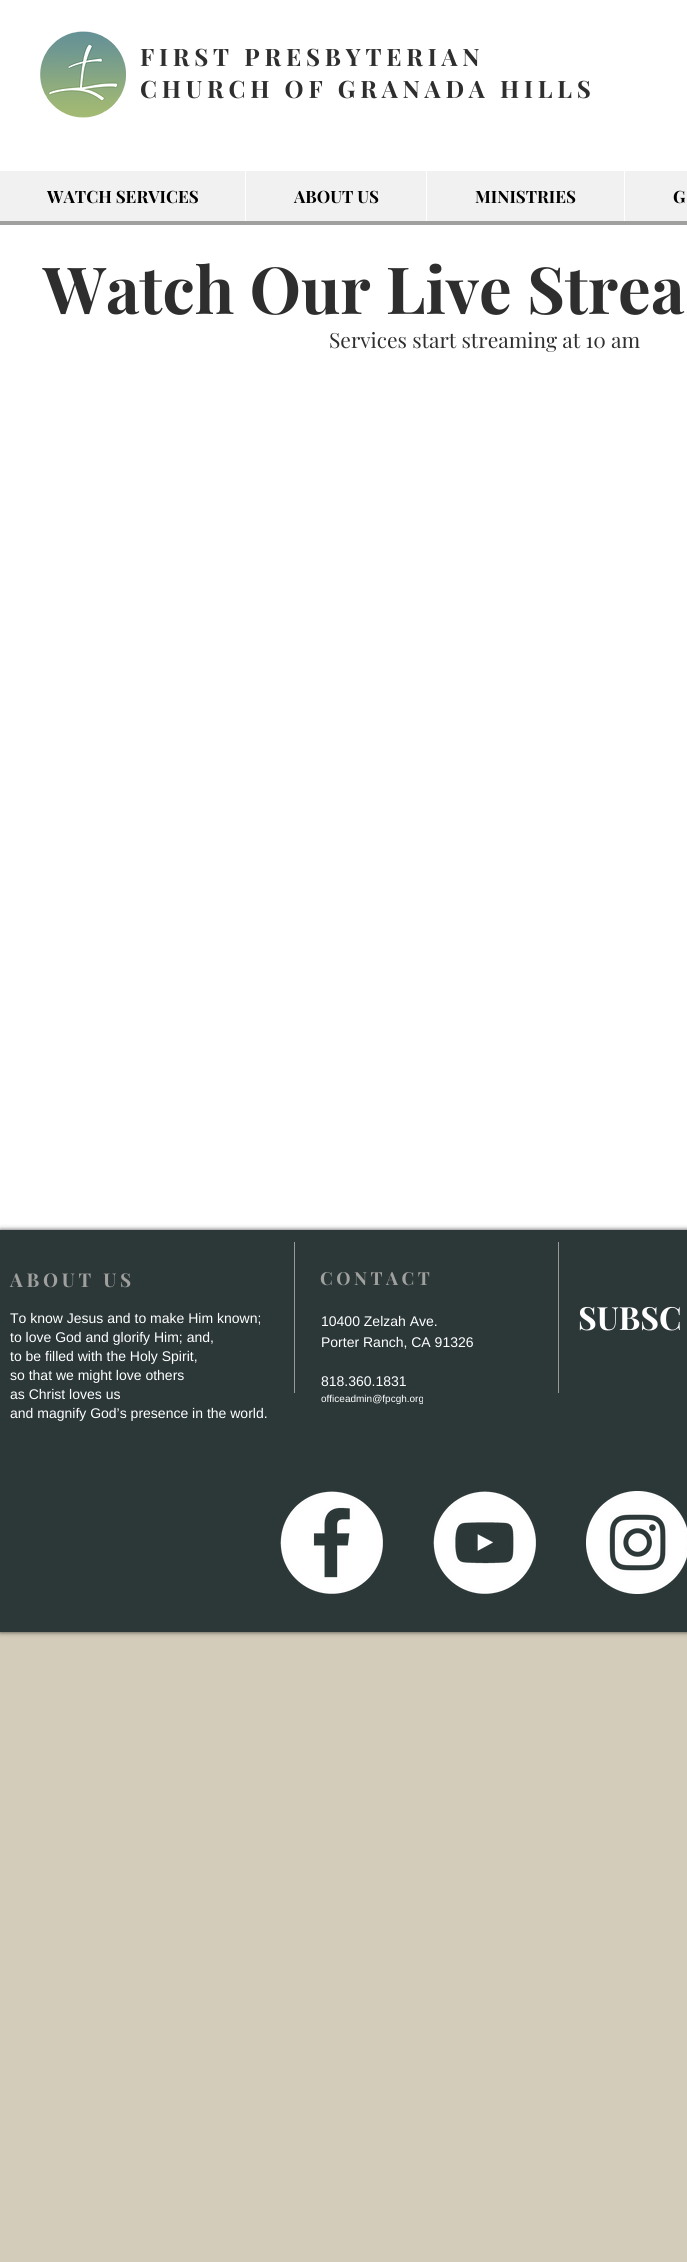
#include <cairo.h>
#include <math.h>
#include <stddef.h>

static cairo_t *ctx;

static void use_color(int r, int g, int b) {
    cairo_set_source_rgb(ctx, r / 255.0, g / 255.0, b / 255.0);
}

static void spaced_text(double x, double y, const char *s, double letter, double word) {
    cairo_move_to(ctx, x, y);
    while (*s) {
        char ch[5] = {0};
        int n = 0;
        do ch[n++] = *s++; while ((*s & 0xC0) == 0x80);
        cairo_show_text(ctx, ch);
        cairo_rel_move_to(ctx, letter + word * (*ch == ' '), 0);
    }
}

static void round_rect(double x, double y, double w, double h, double r) {
    cairo_new_sub_path(ctx);
    cairo_arc(ctx, x + w - r, y + h - r, r, 0, M_PI / 2);
    cairo_arc(ctx, x + r, y + h - r, r, M_PI / 2, M_PI);
    cairo_arc(ctx, x + r, y + r, r, M_PI, 1.5 * M_PI);
    cairo_arc(ctx, x + w - r, y + r, r, 1.5 * M_PI, 2 * M_PI);
    cairo_close_path(ctx);
}

static void shadow(double x, double y, double w, double h, double r, double blur, double alpha) {
    cairo_push_group_with_content(ctx, CAIRO_CONTENT_ALPHA);
    cairo_set_operator(ctx, CAIRO_OPERATOR_SOURCE);
    for (int i = 15; i >= -15 && fmin(w, h) + blur * i / 3 > 0; i -= 2) {
        double e = blur * i / 6;
        cairo_set_source_rgba(ctx, 0, 0, 0, alpha * erfc((i - 1) / 8.5) / 2);
        round_rect(x - e, y - e, w + 2 * e, h + 2 * e, fmax(0, fmin(r + e + blur * .6, fmin(w, h) / 2 + e)));
        cairo_fill(ctx);
    }
    cairo_pattern_t *soft = cairo_pop_group(ctx);
    cairo_mask(ctx, soft);
    cairo_pattern_destroy(soft);
}

static void picture(const char *path, double x, double y, double w, double h) {
    cairo_surface_t *image = cairo_image_surface_create_from_png(path);
    cairo_save(ctx);
    cairo_set_source_surface(ctx, image, x, y);
    cairo_rectangle(ctx, x, y, w, h);
    cairo_fill(ctx);
    cairo_restore(ctx);
    cairo_surface_destroy(image);
}

int main(void) {
    cairo_surface_t *surface = cairo_image_surface_create(CAIRO_FORMAT_RGB24, 687, 2262);
    ctx = cairo_create(surface);
    cairo_font_options_t *options = cairo_font_options_create();
    cairo_font_options_set_hint_metrics(options, CAIRO_HINT_METRICS_OFF);
    cairo_font_options_set_hint_style(options, CAIRO_HINT_STYLE_NONE);
    cairo_set_font_options(ctx, options);
    cairo_set_miter_limit(ctx, 4);
    use_color(211, 204, 186);
    cairo_paint(ctx);
    use_color(255, 255, 255);
    cairo_rectangle(ctx, 0, 0, 687, 171);
    cairo_fill(ctx);
    use_color(160, 160, 159);
    cairo_rectangle(ctx, 0, 221, 687, 4);
    cairo_fill(ctx);
    picture("img1.png", 40, 31, 86, 87);
    cairo_select_font_face(ctx, "Playfair Display", CAIRO_FONT_SLANT_NORMAL, CAIRO_FONT_WEIGHT_BOLD);
    cairo_set_font_size(ctx, 24);
    use_color(47, 46, 46);
    spaced_text(140, 66, "FIRST PRESBYTERIAN", 4.8, 0);
    spaced_text(140, 98, "CHURCH OF GRANADA HILLS", 4.8, 0);
    use_color(241, 241, 241);
    cairo_rectangle(ctx, 0, 171, 687, 50);
    cairo_fill(ctx);
    cairo_set_font_size(ctx, 17);
    use_color(0, 0, 0);
    cairo_move_to(ctx, 47, 203);
    cairo_show_text(ctx, "WATCH SERVICES");
    use_color(255, 255, 255);
    cairo_rectangle(ctx, 245, 171, 1, 50);
    cairo_fill(ctx);
    use_color(0, 0, 0);
    cairo_move_to(ctx, 294, 203);
    cairo_show_text(ctx, "ABOUT US");
    use_color(255, 255, 255);
    cairo_rectangle(ctx, 426, 171, 1, 50);
    cairo_fill(ctx);
    use_color(0, 0, 0);
    cairo_move_to(ctx, 475, 203);
    cairo_show_text(ctx, "MINISTRIES");
    use_color(255, 255, 255);
    cairo_rectangle(ctx, 624, 171, 1, 50);
    cairo_fill(ctx);
    use_color(0, 0, 0);
    cairo_move_to(ctx, 673, 203);
    cairo_show_text(ctx, "G");
    use_color(255, 255, 255);
    cairo_rectangle(ctx, 0, 225, 687, 1005);
    cairo_fill(ctx);
    cairo_set_font_size(ctx, 65);
    use_color(47, 46, 46);
    cairo_move_to(ctx, 43, 314);
    cairo_show_text(ctx, "Watch Our Live Strea");
    cairo_select_font_face(ctx, "Playfair Display", CAIRO_FONT_SLANT_NORMAL, CAIRO_FONT_WEIGHT_NORMAL);
    cairo_set_font_size(ctx, 21);
    cairo_move_to(ctx, 329, 348);
    cairo_show_text(ctx, "Services start streaming at 10 am");
    use_color(0, 0, 0);
    shadow(0, 1230, 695, 402, 0, 2.5, 0.7);
    use_color(44, 55, 56);
    cairo_rectangle(ctx, 0, 1230, 687, 402);
    cairo_fill(ctx);
    cairo_select_font_face(ctx, "Playfair Display", CAIRO_FONT_SLANT_NORMAL, CAIRO_FONT_WEIGHT_BOLD);
    cairo_set_font_size(ctx, 19);
    use_color(160, 160, 159);
    spaced_text(10, 1287, "ABOUT US", 3.75, 0);
    use_color(153, 153, 153);
    cairo_rectangle(ctx, 294, 1242, 1, 151);
    cairo_fill(ctx);
    cairo_set_font_size(ctx, 18);
    use_color(160, 160, 159);
    spaced_text(320, 1285, "CONTACT", 3.5, 0);
    use_color(153, 153, 153);
    cairo_rectangle(ctx, 558, 1242, 1, 151);
    cairo_fill(ctx);
    cairo_select_font_face(ctx, "Liberation Sans", CAIRO_FONT_SLANT_NORMAL, CAIRO_FONT_WEIGHT_NORMAL);
    cairo_set_font_size(ctx, 14);
    use_color(255, 255, 255);
    cairo_move_to(ctx, 10, 1323);
    cairo_show_text(ctx, "To know Jesus and to make Him known;");
    cairo_move_to(ctx, 10, 1342);
    cairo_show_text(ctx, "to love God and glorify Him; and,");
    cairo_move_to(ctx, 10, 1361);
    cairo_show_text(ctx, "to be filled with the Holy Spirit,");
    cairo_move_to(ctx, 10, 1380);
    cairo_show_text(ctx, "so that we might love others");
    cairo_move_to(ctx, 10, 1399);
    cairo_show_text(ctx, "as Christ loves us");
    cairo_move_to(ctx, 10, 1418);
    cairo_show_text(ctx, "and magnify God’s presence in the world.");
    cairo_move_to(ctx, 321, 1326);
    cairo_show_text(ctx, "10400 Zelzah Ave.");
    cairo_move_to(ctx, 321, 1347);
    cairo_show_text(ctx, "Porter Ranch, CA 91326");
    cairo_move_to(ctx, 321, 1386);
    cairo_show_text(ctx, "818.360.1831");
    cairo_set_font_size(ctx, 10);
    cairo_move_to(ctx, 321, 1402);
    cairo_show_text(ctx, "officeadmin@fpcgh.org");
    cairo_select_font_face(ctx, "Playfair Display", CAIRO_FONT_SLANT_NORMAL, CAIRO_FONT_WEIGHT_BOLD);
    cairo_set_font_size(ctx, 32);
    cairo_move_to(ctx, 578, 1330);
    cairo_show_text(ctx, "SUBSC");
    picture("img2.png", 280, 1491, 103, 103);
    picture("img3.png", 433, 1491, 103, 103);
    picture("img4.png", 586, 1491, 101, 103);
    cairo_surface_write_to_png(surface, "result.png");
    cairo_font_options_destroy(options);
    cairo_destroy(ctx);
    cairo_surface_destroy(surface);
    return 0;
}
